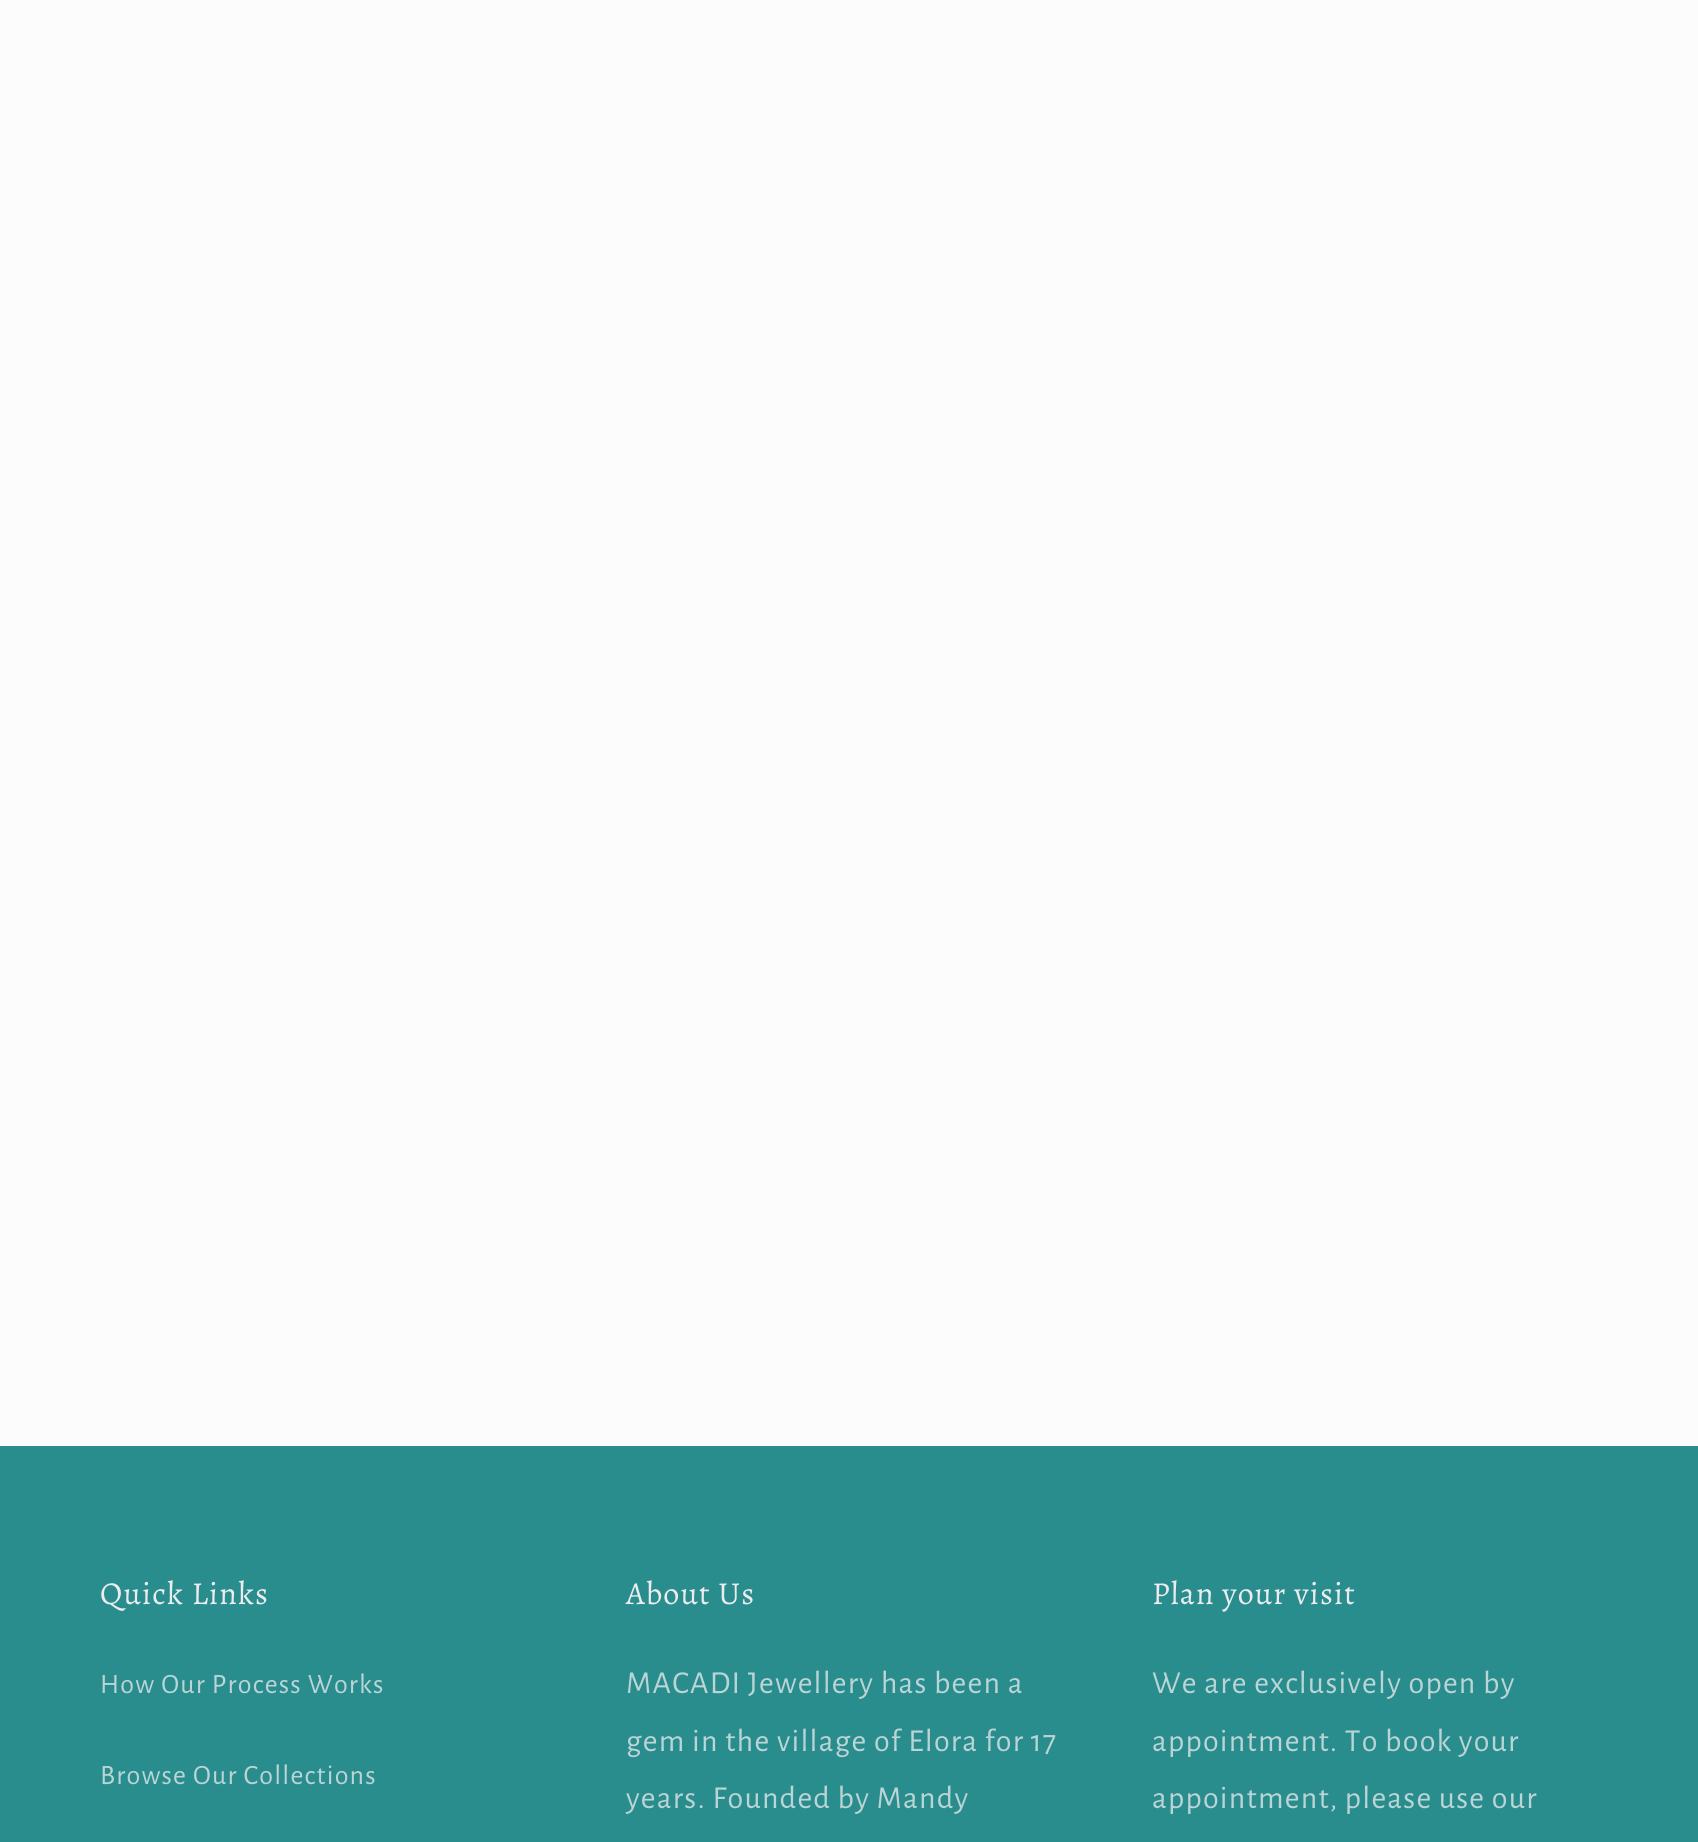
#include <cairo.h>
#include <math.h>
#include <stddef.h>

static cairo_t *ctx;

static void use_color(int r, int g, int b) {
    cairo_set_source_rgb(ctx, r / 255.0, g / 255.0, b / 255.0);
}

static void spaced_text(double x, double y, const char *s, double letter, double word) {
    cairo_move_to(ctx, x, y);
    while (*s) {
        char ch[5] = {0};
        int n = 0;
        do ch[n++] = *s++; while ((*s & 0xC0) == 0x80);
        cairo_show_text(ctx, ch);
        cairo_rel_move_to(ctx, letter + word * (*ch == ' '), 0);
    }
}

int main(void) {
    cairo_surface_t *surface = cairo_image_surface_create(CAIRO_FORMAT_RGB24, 1698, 1842);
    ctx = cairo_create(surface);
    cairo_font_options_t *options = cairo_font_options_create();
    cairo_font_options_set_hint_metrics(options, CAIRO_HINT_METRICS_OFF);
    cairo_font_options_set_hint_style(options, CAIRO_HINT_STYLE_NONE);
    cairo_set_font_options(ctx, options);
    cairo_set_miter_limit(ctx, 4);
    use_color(252, 252, 252);
    cairo_paint(ctx);
    use_color(41, 141, 142);
    cairo_rectangle(ctx, 0, 1446, 1698, 396);
    cairo_fill(ctx);
    cairo_select_font_face(ctx, "Alegreya", CAIRO_FONT_SLANT_NORMAL, CAIRO_FONT_WEIGHT_NORMAL);
    cairo_set_font_size(ctx, 32);
    use_color(235, 236, 237);
    spaced_text(100, 1604, "Quick Links", 1.2, 0);
    cairo_select_font_face(ctx, "Alegreya Sans", CAIRO_FONT_SLANT_NORMAL, CAIRO_FONT_WEIGHT_NORMAL);
    cairo_set_font_size(ctx, 28);
    use_color(187, 212, 213);
    spaced_text(100, 1693, "How Our Process Works", 1.2, 0);
    spaced_text(100, 1784, "Browse Our Collections", 1.2, 0);
    cairo_select_font_face(ctx, "Alegreya", CAIRO_FONT_SLANT_NORMAL, CAIRO_FONT_WEIGHT_NORMAL);
    cairo_set_font_size(ctx, 32);
    use_color(235, 236, 237);
    spaced_text(626, 1604, "About Us", 1.2, 0);
    cairo_select_font_face(ctx, "Alegreya Sans", CAIRO_FONT_SLANT_NORMAL, CAIRO_FONT_WEIGHT_NORMAL);
    use_color(187, 212, 213);
    spaced_text(626, 1693, "MACADI Jewellery has been a", 1.2, 0);
    spaced_text(626, 1751, "gem in the village of Elora for 17", 1.2, 0);
    spaced_text(626, 1808, "years. Founded by Mandy", 1.2, 0);
    cairo_select_font_face(ctx, "Alegreya", CAIRO_FONT_SLANT_NORMAL, CAIRO_FONT_WEIGHT_NORMAL);
    use_color(235, 236, 237);
    spaced_text(1152, 1604, "Plan your visit", 1.2, 0);
    cairo_select_font_face(ctx, "Alegreya Sans", CAIRO_FONT_SLANT_NORMAL, CAIRO_FONT_WEIGHT_NORMAL);
    use_color(187, 212, 213);
    spaced_text(1152, 1693, "We are exclusively open by", 1.2, 0);
    spaced_text(1152, 1751, "appointment. To book your", 1.2, 0);
    spaced_text(1152, 1808, "appointment, please use our", 1.2, 0);
    cairo_surface_write_to_png(surface, "result.png");
    cairo_font_options_destroy(options);
    cairo_destroy(ctx);
    cairo_surface_destroy(surface);
    return 0;
}
